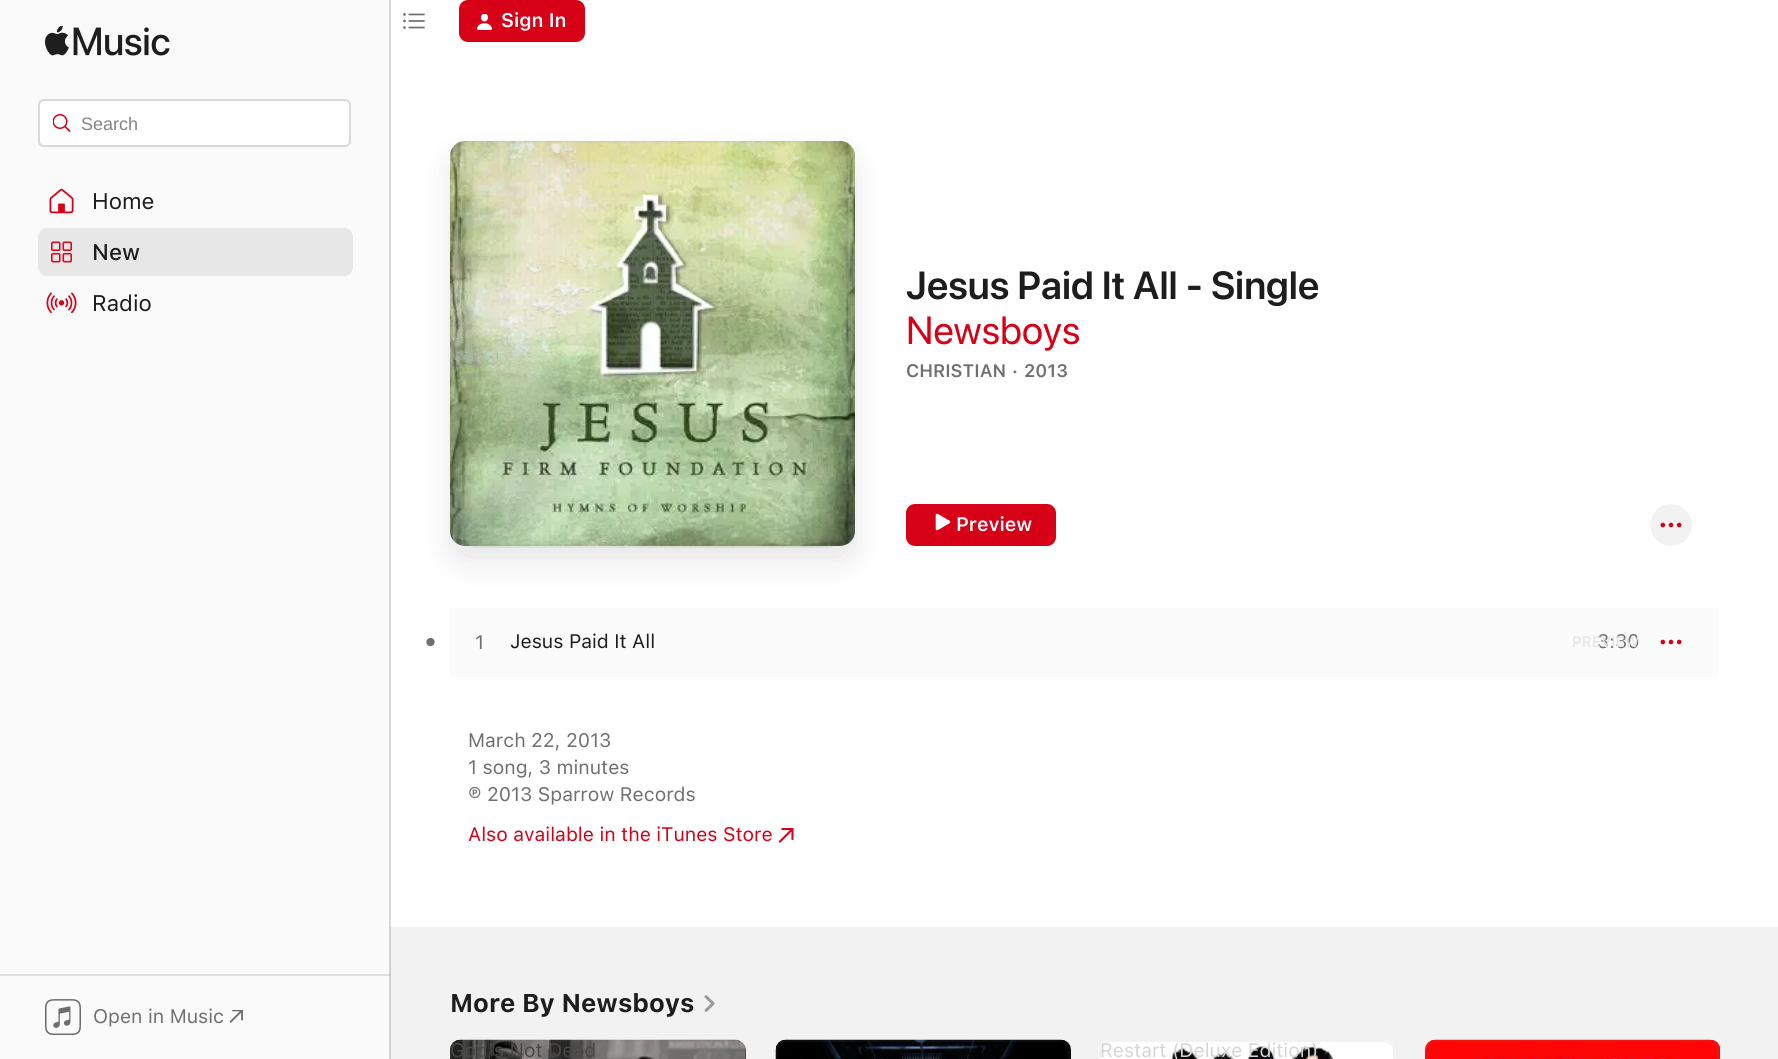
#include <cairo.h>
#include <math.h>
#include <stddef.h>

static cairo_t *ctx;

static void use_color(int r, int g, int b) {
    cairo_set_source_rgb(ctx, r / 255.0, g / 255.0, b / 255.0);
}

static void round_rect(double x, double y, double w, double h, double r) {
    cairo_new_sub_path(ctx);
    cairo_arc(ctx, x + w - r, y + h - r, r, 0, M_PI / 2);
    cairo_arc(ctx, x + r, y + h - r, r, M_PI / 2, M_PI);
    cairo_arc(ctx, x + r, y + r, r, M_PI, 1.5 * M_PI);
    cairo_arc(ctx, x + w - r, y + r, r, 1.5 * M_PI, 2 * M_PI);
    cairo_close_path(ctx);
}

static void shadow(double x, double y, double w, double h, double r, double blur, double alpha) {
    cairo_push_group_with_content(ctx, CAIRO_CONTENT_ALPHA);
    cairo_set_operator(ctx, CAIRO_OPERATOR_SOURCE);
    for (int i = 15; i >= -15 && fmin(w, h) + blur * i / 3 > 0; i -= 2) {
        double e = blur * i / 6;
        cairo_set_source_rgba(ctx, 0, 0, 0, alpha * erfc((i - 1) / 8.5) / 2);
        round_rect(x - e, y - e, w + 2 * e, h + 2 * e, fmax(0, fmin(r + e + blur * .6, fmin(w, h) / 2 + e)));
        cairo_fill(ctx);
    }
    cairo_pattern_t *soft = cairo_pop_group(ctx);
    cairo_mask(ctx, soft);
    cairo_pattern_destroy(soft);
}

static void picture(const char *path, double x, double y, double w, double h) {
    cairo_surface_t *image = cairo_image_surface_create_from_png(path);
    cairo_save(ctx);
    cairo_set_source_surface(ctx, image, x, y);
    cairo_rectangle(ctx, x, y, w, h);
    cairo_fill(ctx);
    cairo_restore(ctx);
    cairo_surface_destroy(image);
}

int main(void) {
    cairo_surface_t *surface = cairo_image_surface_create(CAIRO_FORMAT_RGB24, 1778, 1059);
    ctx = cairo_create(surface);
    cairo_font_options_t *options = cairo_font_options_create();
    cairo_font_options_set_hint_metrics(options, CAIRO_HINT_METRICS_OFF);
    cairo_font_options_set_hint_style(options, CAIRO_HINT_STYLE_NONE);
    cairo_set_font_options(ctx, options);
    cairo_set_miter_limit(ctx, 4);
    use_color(255, 255, 255);
    cairo_paint(ctx);
    use_color(217, 217, 217);
    cairo_rectangle(ctx, 390, 0, 1, 927);
    cairo_fill(ctx);
    picture("img1.png", 403, 13, 22, 16);
    use_color(214, 0, 23);
    round_rect(459, 0, 126, 42, 9);
    cairo_fill(ctx);
    picture("img2.png", 477, 14, 15, 16);
    cairo_select_font_face(ctx, "SF SemiBold", CAIRO_FONT_SLANT_NORMAL, CAIRO_FONT_WEIGHT_NORMAL);
    cairo_set_font_size(ctx, 19.5);
    use_color(255, 255, 255);
    cairo_move_to(ctx, 501, 27);
    cairo_show_text(ctx, "Sign In");
    use_color(250, 250, 250);
    cairo_rectangle(ctx, 0, 0, 389, 1059);
    cairo_fill(ctx);
    use_color(225, 225, 225);
    cairo_rectangle(ctx, 0, 974, 390, 2);
    cairo_fill(ctx);
    use_color(213, 213, 213);
    cairo_rectangle(ctx, 389, 0, 1, 1059);
    cairo_fill(ctx);
    use_color(192, 192, 192);
    cairo_rectangle(ctx, 389, 974, 1, 2);
    cairo_fill(ctx);
    picture("img3.png", 45, 26, 125, 30);
    use_color(255, 255, 255);
    round_rect(39, 100, 311, 46, 5);
    cairo_fill_preserve(ctx);
    use_color(217, 217, 217);
    cairo_stroke(ctx);
    picture("img4.png", 53, 114, 18, 18);
    cairo_select_font_face(ctx, "Liberation Sans", CAIRO_FONT_SLANT_NORMAL, CAIRO_FONT_WEIGHT_NORMAL);
    cairo_set_font_size(ctx, 18);
    use_color(133, 133, 133);
    cairo_move_to(ctx, 81, 130);
    cairo_show_text(ctx, "Search");
    picture("img5.png", 49, 188, 25, 26);
    cairo_select_font_face(ctx, "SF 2", CAIRO_FONT_SLANT_NORMAL, CAIRO_FONT_WEIGHT_NORMAL);
    cairo_set_font_size(ctx, 22.5);
    use_color(29, 29, 29);
    cairo_move_to(ctx, 92, 209);
    cairo_show_text(ctx, "Home");
    use_color(231, 231, 232);
    round_rect(38, 228, 315, 48, 9);
    cairo_fill(ctx);
    picture("img6.png", 51, 241, 21, 22);
    cairo_select_font_face(ctx, "SF Medium", CAIRO_FONT_SLANT_NORMAL, CAIRO_FONT_WEIGHT_NORMAL);
    use_color(29, 29, 29);
    cairo_move_to(ctx, 92, 260);
    cairo_show_text(ctx, "New");
    picture("img7.png", 46, 292, 31, 22);
    cairo_select_font_face(ctx, "SF 2", CAIRO_FONT_SLANT_NORMAL, CAIRO_FONT_WEIGHT_NORMAL);
    cairo_move_to(ctx, 92, 311);
    cairo_show_text(ctx, "Radio");
    picture("img8.png", 45, 999, 36, 36);
    cairo_set_font_size(ctx, 19.5);
    use_color(112, 112, 112);
    cairo_move_to(ctx, 93, 1023);
    cairo_show_text(ctx, "Open in Music");
    picture("img9.png", 230, 1010, 13, 13);
    use_color(0, 0, 0);
    shadow(450, 156, 405, 405, 15, 15, 0.1);
    picture("img10.png", 450, 141, 405, 405);
    round_rect(451, 142, 403, 403, 14);
    cairo_set_source_rgba(ctx, 0.502, 0.502, 0.502, 0.1);
    cairo_stroke(ctx);
    picture("img11.png", 472, 546, 360, 2);
    cairo_select_font_face(ctx, "SF 2 SemiBold", CAIRO_FONT_SLANT_NORMAL, CAIRO_FONT_WEIGHT_NORMAL);
    cairo_set_font_size(ctx, 39);
    use_color(29, 29, 29);
    cairo_move_to(ctx, 906, 299);
    cairo_show_text(ctx, "Jesus Paid It All - Single");
    cairo_select_font_face(ctx, "SF", CAIRO_FONT_SLANT_NORMAL, CAIRO_FONT_WEIGHT_NORMAL);
    use_color(214, 0, 23);
    cairo_move_to(ctx, 906, 344);
    cairo_show_text(ctx, "Newsboys");
    cairo_select_font_face(ctx, "SF SemiBold", CAIRO_FONT_SLANT_NORMAL, CAIRO_FONT_WEIGHT_NORMAL);
    cairo_set_font_size(ctx, 18);
    use_color(112, 112, 112);
    cairo_move_to(ctx, 906, 377);
    cairo_show_text(ctx, "CHRISTIAN · 2013");
    use_color(214, 0, 23);
    round_rect(906, 504, 150, 42, 9);
    cairo_fill(ctx);
    picture("img12.png", 935, 513, 16, 18);
    cairo_set_font_size(ctx, 19.5);
    use_color(255, 255, 255);
    cairo_move_to(ctx, 956, 531);
    cairo_show_text(ctx, "Preview");
    picture("img13.png", 1650, 504, 42, 42);
    use_color(251, 251, 251);
    cairo_rectangle(ctx, 450, 608, 1269, 69);
    cairo_fill(ctx);
    picture("img14.png", 426, 638, 9, 9);
    cairo_select_font_face(ctx, "SF 2", CAIRO_FONT_SLANT_NORMAL, CAIRO_FONT_WEIGHT_NORMAL);
    use_color(112, 112, 112);
    cairo_move_to(ctx, 475, 649);
    cairo_show_text(ctx, "1");
    use_color(29, 29, 29);
    cairo_move_to(ctx, 510, 648);
    cairo_show_text(ctx, "Jesus Paid It All");
    use_color(112, 112, 112);
    cairo_move_to(ctx, 1597, 648);
    cairo_show_text(ctx, "3:30");
    cairo_select_font_face(ctx, "SF Medium", CAIRO_FONT_SLANT_NORMAL, CAIRO_FONT_WEIGHT_NORMAL);
    cairo_set_font_size(ctx, 15);
    use_color(228, 228, 228);
    cairo_move_to(ctx, 1572, 647);
    cairo_show_text(ctx, "PREVIEW");
    picture("img15.png", 1660, 639, 22, 6);
    cairo_select_font_face(ctx, "SF 2", CAIRO_FONT_SLANT_NORMAL, CAIRO_FONT_WEIGHT_NORMAL);
    cairo_set_font_size(ctx, 19.5);
    use_color(112, 112, 112);
    cairo_move_to(ctx, 468, 747);
    cairo_show_text(ctx, "March 22, 2013");
    cairo_move_to(ctx, 468, 774);
    cairo_show_text(ctx, "1 song, 3 minutes");
    cairo_move_to(ctx, 468, 801);
    cairo_show_text(ctx, "℗ 2013 Sparrow Records");
    use_color(214, 0, 23);
    cairo_move_to(ctx, 468, 841);
    cairo_show_text(ctx, "Also available in the iTunes Store");
    picture("img16.png", 779, 828, 15, 15);
    use_color(242, 242, 242);
    cairo_rectangle(ctx, 391, 927, 1387, 132);
    cairo_fill(ctx);
    use_color(206, 206, 206);
    cairo_rectangle(ctx, 390, 927, 1, 132);
    cairo_fill(ctx);
    cairo_select_font_face(ctx, "SF", CAIRO_FONT_SLANT_NORMAL, CAIRO_FONT_WEIGHT_BOLD);
    cairo_set_font_size(ctx, 25.5);
    use_color(29, 29, 29);
    cairo_move_to(ctx, 450, 1012);
    cairo_show_text(ctx, "More By Newsboys");
    picture("img17.png", 704, 995, 11, 17);
    use_color(56, 56, 55);
    cairo_new_path(ctx);
    cairo_move_to(ctx, 461, 1040);
    cairo_line_to(ctx, 735, 1040);
    cairo_curve_to(ctx, 741, 1040, 746, 1045, 746, 1051);
    cairo_line_to(ctx, 746, 1059);
    cairo_line_to(ctx, 450, 1059);
    cairo_line_to(ctx, 450, 1051);
    cairo_curve_to(ctx, 450, 1045, 455, 1040, 461, 1040);
    cairo_close_path(ctx);
    cairo_fill(ctx);
    picture("img18.png", 450, 1039, 296, 20);
    round_rect(451, 1041, 294, 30, 10);
    cairo_set_source_rgba(ctx, 0.502, 0.502, 0.502, 0.1);
    cairo_stroke(ctx);
    cairo_select_font_face(ctx, "SF 2", CAIRO_FONT_SLANT_NORMAL, CAIRO_FONT_WEIGHT_NORMAL);
    cairo_set_font_size(ctx, 19.5);
    use_color(73, 72, 70);
    cairo_move_to(ctx, 450, 1057);
    cairo_show_text(ctx, "God's Not Dead");
    picture("img19.png", 775, 1039, 296, 20);
    round_rect(777, 1041, 292, 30, 10);
    cairo_set_source_rgba(ctx, 0.502, 0.502, 0.502, 0.1);
    cairo_stroke(ctx);
    picture("img20.png", 1100, 1040, 295, 19);
    round_rect(1101, 1041, 293, 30, 10);
    use_color(242, 242, 242);
    cairo_stroke(ctx);
    use_color(213, 213, 213);
    cairo_move_to(ctx, 1100, 1057);
    cairo_show_text(ctx, "Restart (Deluxe Edition)");
    picture("img21.png", 1425, 1039, 295, 20);
    round_rect(1426, 1041, 292, 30, 10);
    cairo_set_source_rgba(ctx, 0.502, 0.502, 0.502, 0.1);
    cairo_stroke(ctx);
    cairo_surface_write_to_png(surface, "result.png");
    cairo_font_options_destroy(options);
    cairo_destroy(ctx);
    cairo_surface_destroy(surface);
    return 0;
}
